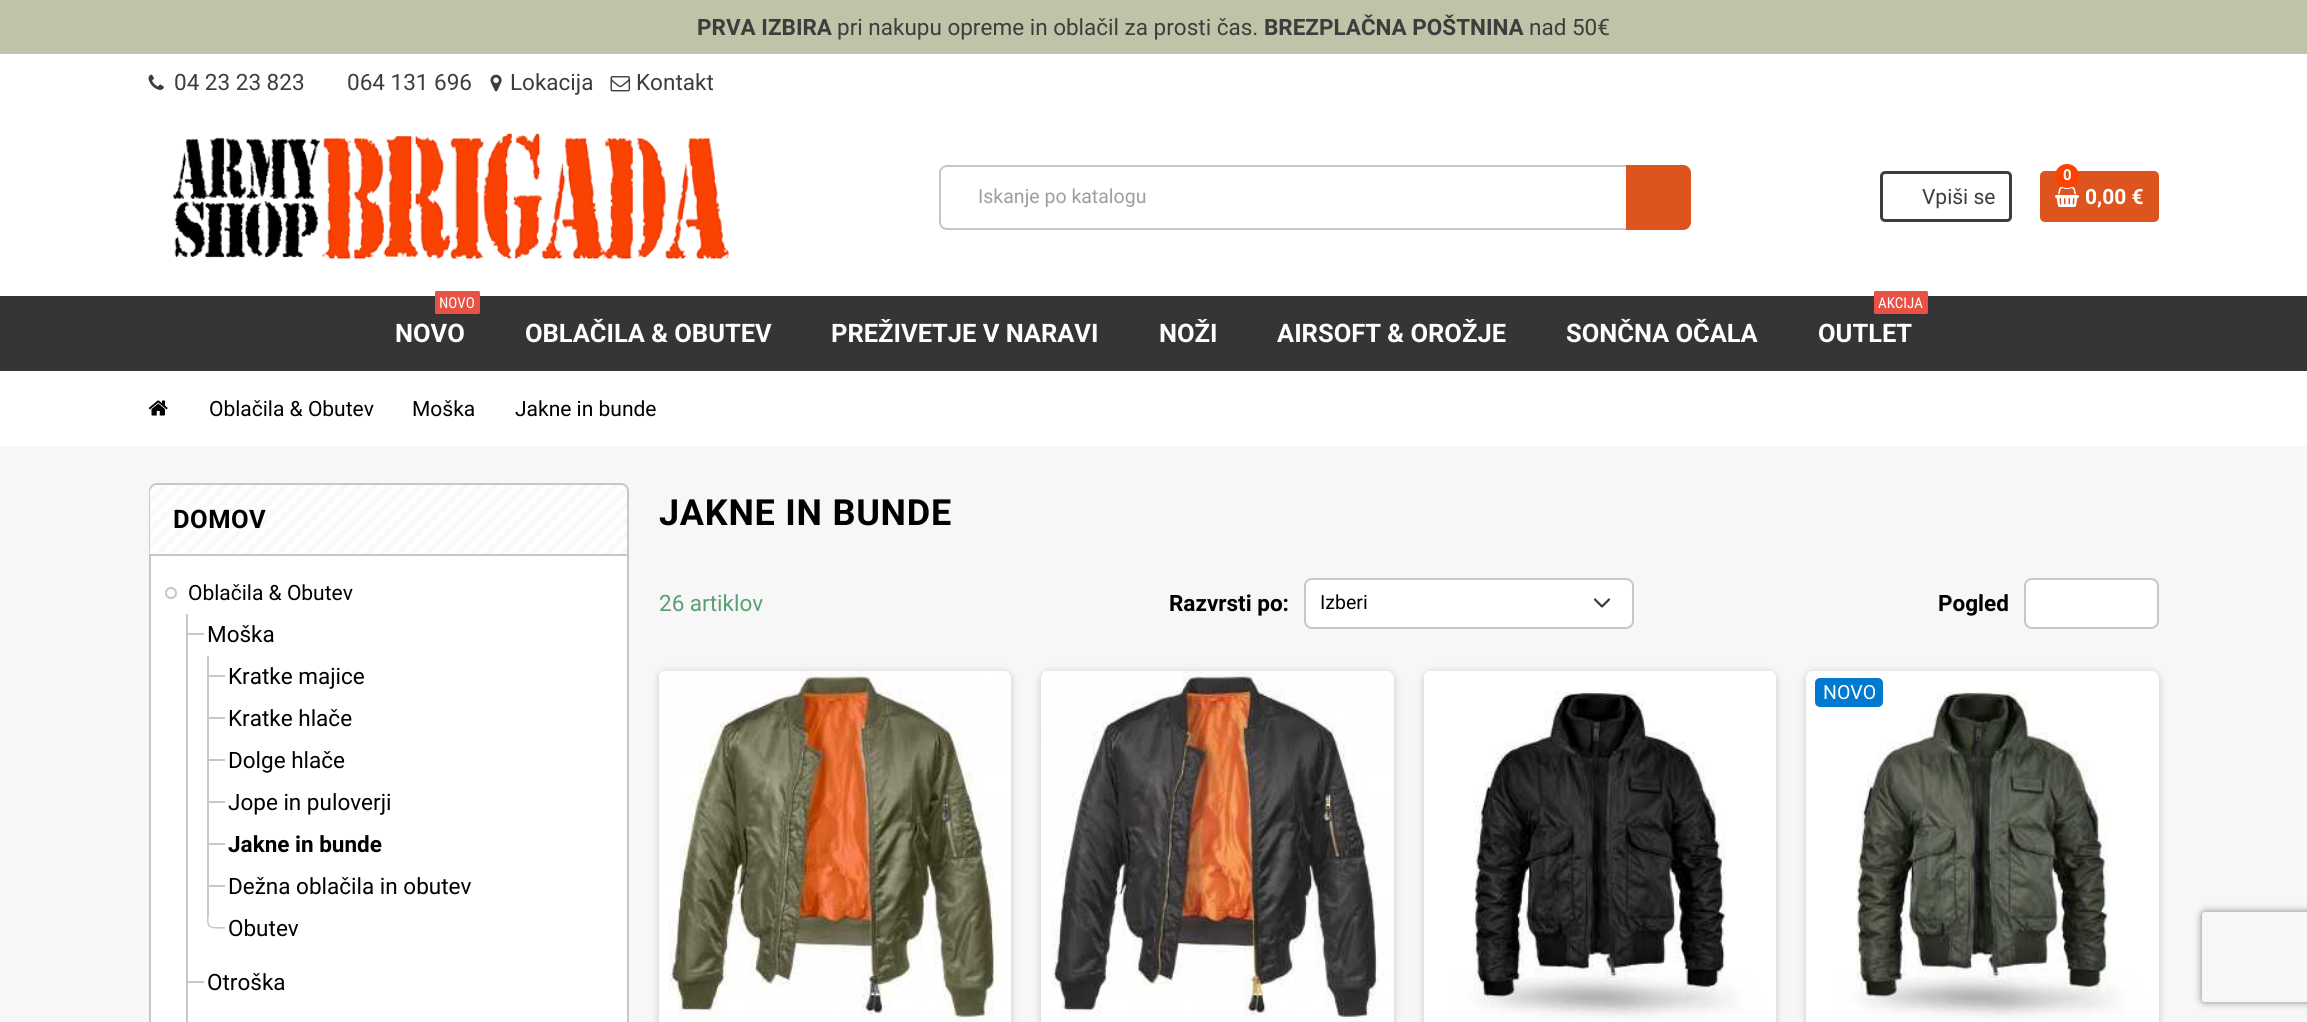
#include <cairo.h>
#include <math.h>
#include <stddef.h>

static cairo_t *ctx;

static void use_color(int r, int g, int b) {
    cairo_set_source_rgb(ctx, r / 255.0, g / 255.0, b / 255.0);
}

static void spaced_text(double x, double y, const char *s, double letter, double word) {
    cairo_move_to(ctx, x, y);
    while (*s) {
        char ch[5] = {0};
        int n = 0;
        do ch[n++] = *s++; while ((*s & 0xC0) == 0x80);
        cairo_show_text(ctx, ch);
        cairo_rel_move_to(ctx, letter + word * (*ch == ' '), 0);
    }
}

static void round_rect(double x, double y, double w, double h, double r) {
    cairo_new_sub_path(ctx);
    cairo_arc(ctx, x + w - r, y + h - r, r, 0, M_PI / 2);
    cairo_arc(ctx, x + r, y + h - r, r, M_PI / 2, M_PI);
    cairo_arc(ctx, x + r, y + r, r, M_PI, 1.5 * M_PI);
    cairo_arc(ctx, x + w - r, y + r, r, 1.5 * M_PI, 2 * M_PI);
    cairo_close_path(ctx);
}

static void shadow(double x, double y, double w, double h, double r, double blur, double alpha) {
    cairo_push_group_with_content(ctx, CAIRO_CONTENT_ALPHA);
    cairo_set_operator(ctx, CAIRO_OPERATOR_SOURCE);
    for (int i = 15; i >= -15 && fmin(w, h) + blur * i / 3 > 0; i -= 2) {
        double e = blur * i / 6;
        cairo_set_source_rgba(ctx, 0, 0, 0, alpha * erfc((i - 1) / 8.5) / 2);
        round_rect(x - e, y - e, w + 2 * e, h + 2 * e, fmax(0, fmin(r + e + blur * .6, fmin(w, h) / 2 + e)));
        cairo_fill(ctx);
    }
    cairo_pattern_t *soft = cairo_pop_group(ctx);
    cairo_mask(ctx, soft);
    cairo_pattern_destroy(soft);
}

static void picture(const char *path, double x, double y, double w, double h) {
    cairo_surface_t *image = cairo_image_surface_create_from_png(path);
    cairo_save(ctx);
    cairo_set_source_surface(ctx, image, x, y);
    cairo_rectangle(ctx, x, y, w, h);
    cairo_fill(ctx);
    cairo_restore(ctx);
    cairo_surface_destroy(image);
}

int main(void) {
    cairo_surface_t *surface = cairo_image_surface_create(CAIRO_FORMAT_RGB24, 2307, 1022);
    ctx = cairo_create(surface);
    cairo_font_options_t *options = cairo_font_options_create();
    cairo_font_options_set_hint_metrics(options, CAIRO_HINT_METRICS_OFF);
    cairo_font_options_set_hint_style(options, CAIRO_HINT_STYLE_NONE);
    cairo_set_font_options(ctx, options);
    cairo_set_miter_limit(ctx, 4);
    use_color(255, 255, 255);
    cairo_paint(ctx);
    use_color(189, 196, 167);
    cairo_rectangle(ctx, 0, 0, 2307, 54);
    cairo_fill(ctx);
    cairo_select_font_face(ctx, "Roboto", CAIRO_FONT_SLANT_NORMAL, CAIRO_FONT_WEIGHT_BOLD);
    cairo_set_font_size(ctx, 22.5);
    use_color(61, 61, 61);
    cairo_move_to(ctx, 697, 35);
    cairo_show_text(ctx, "PRVA IZBIRA");
    cairo_select_font_face(ctx, "Roboto", CAIRO_FONT_SLANT_NORMAL, CAIRO_FONT_WEIGHT_NORMAL);
    cairo_move_to(ctx, 837, 35);
    cairo_show_text(ctx, "pri nakupu opreme in oblačil za prosti čas.");
    cairo_select_font_face(ctx, "Roboto", CAIRO_FONT_SLANT_NORMAL, CAIRO_FONT_WEIGHT_BOLD);
    cairo_move_to(ctx, 1264, 35);
    cairo_show_text(ctx, "BREZPLAČNA POŠTNINA");
    cairo_select_font_face(ctx, "Roboto", CAIRO_FONT_SLANT_NORMAL, CAIRO_FONT_WEIGHT_NORMAL);
    cairo_move_to(ctx, 1529, 35);
    cairo_show_text(ctx, "nad 50€");
    picture("img1.png", 148, 74, 16, 16);
    cairo_move_to(ctx, 174, 90);
    cairo_show_text(ctx, "04 23 23 823");
    cairo_move_to(ctx, 347, 90);
    cairo_show_text(ctx, "064 131 696");
    picture("img2.png", 490, 74, 12, 18);
    cairo_move_to(ctx, 510, 90);
    cairo_show_text(ctx, "Lokacija");
    picture("img3.png", 610, 76, 20, 16);
    cairo_move_to(ctx, 636, 90);
    cairo_show_text(ctx, "Kontakt");
    picture("img4.png", 172, 132, 557, 128);
    round_rect(940, 166, 748, 63, 7);
    use_color(199, 199, 199);
    cairo_stroke(ctx);
    cairo_set_font_size(ctx, 19.5);
    use_color(158, 158, 158);
    cairo_move_to(ctx, 978, 203);
    cairo_show_text(ctx, "Iskanje po katalogu");
    use_color(222, 84, 30);
    cairo_new_path(ctx);
    cairo_move_to(ctx, 1626, 165);
    cairo_line_to(ctx, 1683, 165);
    cairo_curve_to(ctx, 1687.5, 165, 1691, 168.5, 1691, 173);
    cairo_line_to(ctx, 1691, 222);
    cairo_curve_to(ctx, 1691, 226.5, 1687.5, 230, 1683, 230);
    cairo_line_to(ctx, 1626, 230);
    cairo_close_path(ctx);
    cairo_fill(ctx);
    round_rect(1881.5, 172.5, 129, 48, 3.5);
    use_color(61, 61, 61);
    cairo_set_line_width(ctx, 3);
    cairo_stroke(ctx);
    cairo_set_font_size(ctx, 21);
    cairo_move_to(ctx, 1922, 204);
    cairo_show_text(ctx, "Vpiši se");
    use_color(222, 84, 30);
    round_rect(2040, 171, 119, 51, 5);
    cairo_fill(ctx);
    picture("img5.png", 2055, 186, 24, 21);
    use_color(250, 67, 1);
    cairo_arc(ctx, 2067, 176, 12, 0, 2 * M_PI);
    cairo_fill(ctx);
    cairo_select_font_face(ctx, "Roboto", CAIRO_FONT_SLANT_NORMAL, CAIRO_FONT_WEIGHT_BOLD);
    cairo_set_font_size(ctx, 15);
    use_color(255, 255, 255);
    cairo_move_to(ctx, 2063, 180);
    cairo_show_text(ctx, "0");
    cairo_set_font_size(ctx, 21);
    cairo_move_to(ctx, 2085, 204);
    cairo_show_text(ctx, "0,00 €");
    use_color(53, 53, 53);
    cairo_rectangle(ctx, 0, 296, 2307, 75);
    cairo_fill(ctx);
    use_color(233, 81, 68);
    round_rect(435, 291, 45, 23, 1.5);
    cairo_fill(ctx);
    cairo_select_font_face(ctx, "Roboto Condensed", CAIRO_FONT_SLANT_NORMAL, CAIRO_FONT_WEIGHT_NORMAL);
    cairo_set_font_size(ctx, 15);
    use_color(255, 255, 255);
    cairo_move_to(ctx, 439, 308);
    cairo_show_text(ctx, "NOVO");
    cairo_select_font_face(ctx, "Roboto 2", CAIRO_FONT_SLANT_NORMAL, CAIRO_FONT_WEIGHT_BOLD);
    cairo_set_font_size(ctx, 25.5);
    cairo_move_to(ctx, 395, 342);
    cairo_show_text(ctx, "NOVO");
    cairo_move_to(ctx, 525, 342);
    cairo_show_text(ctx, "OBLAČILA & OBUTEV");
    cairo_move_to(ctx, 831, 342);
    cairo_show_text(ctx, "PREŽIVETJE V NARAVI");
    cairo_move_to(ctx, 1159, 342);
    cairo_show_text(ctx, "NOŽI");
    cairo_move_to(ctx, 1277, 342);
    cairo_show_text(ctx, "AIRSOFT & OROŽJE");
    cairo_move_to(ctx, 1566, 342);
    cairo_show_text(ctx, "SONČNA OČALA");
    use_color(233, 81, 68);
    round_rect(1874, 291, 54, 23, 1.5);
    cairo_fill(ctx);
    cairo_select_font_face(ctx, "Roboto Condensed", CAIRO_FONT_SLANT_NORMAL, CAIRO_FONT_WEIGHT_NORMAL);
    cairo_set_font_size(ctx, 15);
    use_color(255, 255, 255);
    cairo_move_to(ctx, 1878, 308);
    cairo_show_text(ctx, "AKCIJA");
    cairo_select_font_face(ctx, "Roboto 2", CAIRO_FONT_SLANT_NORMAL, CAIRO_FONT_WEIGHT_BOLD);
    cairo_set_font_size(ctx, 25.5);
    cairo_move_to(ctx, 1818, 342);
    cairo_show_text(ctx, "OUTLET");
    use_color(247, 247, 247);
    cairo_rectangle(ctx, 0, 446, 2307, 576);
    cairo_fill(ctx);
    picture("img6.png", 148, 400, 20, 16);
    cairo_select_font_face(ctx, "Roboto", CAIRO_FONT_SLANT_NORMAL, CAIRO_FONT_WEIGHT_NORMAL);
    cairo_set_font_size(ctx, 21);
    use_color(0, 0, 0);
    cairo_move_to(ctx, 209, 416);
    cairo_show_text(ctx, "Oblačila & Obutev");
    cairo_move_to(ctx, 412, 416);
    cairo_show_text(ctx, "Moška");
    cairo_move_to(ctx, 515, 416);
    cairo_show_text(ctx, "Jakne in bunde");
    use_color(255, 255, 255);
    round_rect(150, 484, 478, 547, 7);
    cairo_fill_preserve(ctx);
    use_color(199, 199, 199);
    cairo_set_line_width(ctx, 2);
    cairo_stroke(ctx);
    use_color(255, 255, 255);
    cairo_new_path(ctx);
    cairo_move_to(ctx, 158, 485);
    cairo_line_to(ctx, 619, 485);
    cairo_curve_to(ctx, 623.5, 485, 627, 488.5, 627, 493);
    cairo_line_to(ctx, 627, 555);
    cairo_line_to(ctx, 150, 555);
    cairo_line_to(ctx, 150, 493);
    cairo_curve_to(ctx, 150, 488.5, 153.5, 485, 158, 485);
    cairo_close_path(ctx);
    cairo_fill(ctx);
    picture("img7.png", 150, 485, 477, 69);
    use_color(199, 199, 199);
    cairo_rectangle(ctx, 150, 554, 477, 2);
    cairo_fill(ctx);
    cairo_select_font_face(ctx, "Roboto 2", CAIRO_FONT_SLANT_NORMAL, CAIRO_FONT_WEIGHT_BOLD);
    cairo_set_font_size(ctx, 25.5);
    use_color(0, 0, 0);
    spaced_text(173, 528, "DOMOV", 0.5, 0);
    cairo_new_path(ctx);
    cairo_arc(ctx, 171, 593, 5, 0, 2 * M_PI);
    use_color(199, 199, 199);
    cairo_stroke(ctx);
    cairo_select_font_face(ctx, "Roboto", CAIRO_FONT_SLANT_NORMAL, CAIRO_FONT_WEIGHT_NORMAL);
    cairo_set_font_size(ctx, 21);
    use_color(0, 0, 0);
    cairo_move_to(ctx, 188, 600);
    cairo_show_text(ctx, "Oblačila & Obutev");
    use_color(199, 199, 199);
    cairo_rectangle(ctx, 186, 633, 18, 2);
    cairo_fill(ctx);
    cairo_rectangle(ctx, 186, 614, 2, 348);
    cairo_fill(ctx);
    cairo_set_font_size(ctx, 22.5);
    use_color(0, 0, 0);
    cairo_move_to(ctx, 207, 642);
    cairo_show_text(ctx, "Moška");
    use_color(199, 199, 199);
    cairo_rectangle(ctx, 207, 675, 18, 2);
    cairo_fill(ctx);
    cairo_rectangle(ctx, 207, 656, 2, 42);
    cairo_fill(ctx);
    use_color(0, 0, 0);
    cairo_move_to(ctx, 228, 684);
    cairo_show_text(ctx, "Kratke majice");
    use_color(199, 199, 199);
    cairo_rectangle(ctx, 207, 717, 18, 2);
    cairo_fill(ctx);
    cairo_rectangle(ctx, 207, 698, 2, 42);
    cairo_fill(ctx);
    use_color(0, 0, 0);
    cairo_move_to(ctx, 228, 726);
    cairo_show_text(ctx, "Kratke hlače");
    use_color(199, 199, 199);
    cairo_rectangle(ctx, 207, 759, 18, 2);
    cairo_fill(ctx);
    cairo_rectangle(ctx, 207, 740, 2, 42);
    cairo_fill(ctx);
    use_color(0, 0, 0);
    cairo_move_to(ctx, 228, 768);
    cairo_show_text(ctx, "Dolge hlače");
    use_color(199, 199, 199);
    cairo_rectangle(ctx, 207, 801, 18, 2);
    cairo_fill(ctx);
    cairo_rectangle(ctx, 207, 782, 2, 42);
    cairo_fill(ctx);
    use_color(0, 0, 0);
    cairo_move_to(ctx, 228, 810);
    cairo_show_text(ctx, "Jope in puloverji");
    use_color(199, 199, 199);
    cairo_rectangle(ctx, 207, 843, 18, 2);
    cairo_fill(ctx);
    cairo_rectangle(ctx, 207, 824, 2, 42);
    cairo_fill(ctx);
    cairo_select_font_face(ctx, "Roboto", CAIRO_FONT_SLANT_NORMAL, CAIRO_FONT_WEIGHT_BOLD);
    use_color(0, 0, 0);
    cairo_move_to(ctx, 228, 852);
    cairo_show_text(ctx, "Jakne in bunde");
    use_color(199, 199, 199);
    cairo_rectangle(ctx, 207, 885, 18, 2);
    cairo_fill(ctx);
    cairo_rectangle(ctx, 207, 866, 2, 51);
    cairo_fill(ctx);
    cairo_select_font_face(ctx, "Roboto", CAIRO_FONT_SLANT_NORMAL, CAIRO_FONT_WEIGHT_NORMAL);
    use_color(0, 0, 0);
    cairo_move_to(ctx, 228, 894);
    cairo_show_text(ctx, "Dežna oblačila in obutev");
    use_color(199, 199, 199);
    cairo_set_fill_rule(ctx, CAIRO_FILL_RULE_EVEN_ODD);
    cairo_new_path(ctx);
    cairo_move_to(ctx, 207, 907.5);
    cairo_line_to(ctx, 225, 907.5);
    cairo_line_to(ctx, 225, 928.5);
    cairo_curve_to(ctx, 219, 928.5, 207, 930.5, 207, 921);
    cairo_close_path(ctx);
    cairo_move_to(ctx, 208.5, 907.5);
    cairo_line_to(ctx, 225, 907.5);
    cairo_line_to(ctx, 225, 927);
    cairo_line_to(ctx, 214.5, 927);
    cairo_curve_to(ctx, 211, 927, 208.5, 924.5, 208.5, 921);
    cairo_close_path(ctx);
    cairo_fill(ctx);
    use_color(0, 0, 0);
    cairo_move_to(ctx, 228, 936);
    cairo_show_text(ctx, "Obutev");
    use_color(199, 199, 199);
    cairo_rectangle(ctx, 186, 981, 18, 2);
    cairo_fill(ctx);
    cairo_rectangle(ctx, 186, 962, 2, 60);
    cairo_fill(ctx);
    use_color(0, 0, 0);
    cairo_move_to(ctx, 207, 990);
    cairo_show_text(ctx, "Otroška");
    cairo_select_font_face(ctx, "Roboto 2", CAIRO_FONT_SLANT_NORMAL, CAIRO_FONT_WEIGHT_BOLD);
    cairo_set_font_size(ctx, 36);
    spaced_text(659, 525, "JAKNE IN BUNDE", 0.75, 0);
    cairo_select_font_face(ctx, "Roboto", CAIRO_FONT_SLANT_NORMAL, CAIRO_FONT_WEIGHT_NORMAL);
    cairo_set_font_size(ctx, 22.5);
    use_color(90, 158, 116);
    cairo_move_to(ctx, 659, 611);
    cairo_show_text(ctx, "26 artiklov");
    cairo_select_font_face(ctx, "Roboto", CAIRO_FONT_SLANT_NORMAL, CAIRO_FONT_WEIGHT_BOLD);
    use_color(0, 0, 0);
    cairo_move_to(ctx, 1169, 611);
    cairo_show_text(ctx, "Razvrsti po:");
    use_color(255, 255, 255);
    round_rect(1304, 578, 330, 51, 8);
    cairo_fill(ctx);
    cairo_new_path(ctx);
    cairo_move_to(ctx, 1595, 599.5);
    cairo_line_to(ctx, 1602, 606.5);
    cairo_line_to(ctx, 1609, 599.5);
    use_color(52, 58, 64);
    cairo_set_line_width(ctx, 2.2);
    cairo_set_line_cap(ctx, CAIRO_LINE_CAP_ROUND);
    cairo_set_line_join(ctx, CAIRO_LINE_JOIN_ROUND);
    cairo_stroke(ctx);
    round_rect(1305, 579, 328, 49, 7);
    use_color(199, 199, 199);
    cairo_set_line_width(ctx, 2);
    cairo_set_line_cap(ctx, CAIRO_LINE_CAP_BUTT);
    cairo_set_line_join(ctx, CAIRO_LINE_JOIN_MITER);
    cairo_stroke(ctx);
    cairo_select_font_face(ctx, "Roboto", CAIRO_FONT_SLANT_NORMAL, CAIRO_FONT_WEIGHT_NORMAL);
    cairo_set_font_size(ctx, 19.5);
    use_color(0, 0, 0);
    cairo_move_to(ctx, 1320, 609);
    cairo_show_text(ctx, "Izberi");
    cairo_select_font_face(ctx, "Roboto", CAIRO_FONT_SLANT_NORMAL, CAIRO_FONT_WEIGHT_BOLD);
    cairo_set_font_size(ctx, 22.5);
    cairo_move_to(ctx, 1938, 611);
    cairo_show_text(ctx, "Pogled");
    use_color(255, 255, 255);
    round_rect(2025, 579, 133, 49, 7);
    cairo_fill_preserve(ctx);
    use_color(199, 199, 199);
    cairo_stroke(ctx);
    use_color(0, 0, 0);
    shadow(659, 672, 352, 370, 8, 4, 0.2);
    picture("img8.png", 659, 671, 352, 351);
    shadow(1041, 672, 353, 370, 8, 4, 0.2);
    use_color(255, 255, 255);
    round_rect(1041, 671, 353, 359, 8);
    cairo_fill(ctx);
    picture("img9.png", 1041, 671, 349, 351);
    use_color(0, 0, 0);
    shadow(1424, 672, 352, 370, 8, 4, 0.2);
    use_color(255, 255, 255);
    round_rect(1424, 671, 352, 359, 8);
    cairo_fill(ctx);
    picture("img10.png", 1424, 671, 352, 349);
    use_color(0, 0, 0);
    shadow(1806, 672, 353, 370, 8, 4, 0.2);
    use_color(255, 255, 255);
    round_rect(1806, 671, 353, 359, 8);
    cairo_fill(ctx);
    picture("img11.png", 1806, 671, 349, 349);
    use_color(0, 122, 209);
    round_rect(1815, 678, 68, 29, 5);
    cairo_fill(ctx);
    cairo_select_font_face(ctx, "Roboto", CAIRO_FONT_SLANT_NORMAL, CAIRO_FONT_WEIGHT_NORMAL);
    cairo_set_font_size(ctx, 19.5);
    use_color(255, 255, 255);
    cairo_move_to(ctx, 1823, 699);
    cairo_show_text(ctx, "NOVO");
    cairo_save(ctx);
    cairo_new_path(ctx);
    cairo_move_to(ctx, 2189, 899);
    cairo_line_to(ctx, 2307, 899);
    cairo_line_to(ctx, 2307, 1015);
    cairo_line_to(ctx, 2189, 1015);
    cairo_close_path(ctx);
    cairo_move_to(ctx, 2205, 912);
    cairo_line_to(ctx, 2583, 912);
    cairo_curve_to(ctx, 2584.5, 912, 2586, 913.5, 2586, 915);
    cairo_line_to(ctx, 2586, 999);
    cairo_curve_to(ctx, 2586, 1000.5, 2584.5, 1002, 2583, 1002);
    cairo_line_to(ctx, 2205, 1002);
    cairo_curve_to(ctx, 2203.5, 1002, 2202, 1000.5, 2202, 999);
    cairo_line_to(ctx, 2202, 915);
    cairo_curve_to(ctx, 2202, 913.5, 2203.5, 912, 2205, 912);
    cairo_close_path(ctx);
    cairo_clip(ctx);
    use_color(128, 128, 128);
    shadow(2202, 912, 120, 90, 3, 4, 1);
    cairo_restore(ctx);
    cairo_surface_write_to_png(surface, "result.png");
    cairo_font_options_destroy(options);
    cairo_destroy(ctx);
    cairo_surface_destroy(surface);
    return 0;
}
